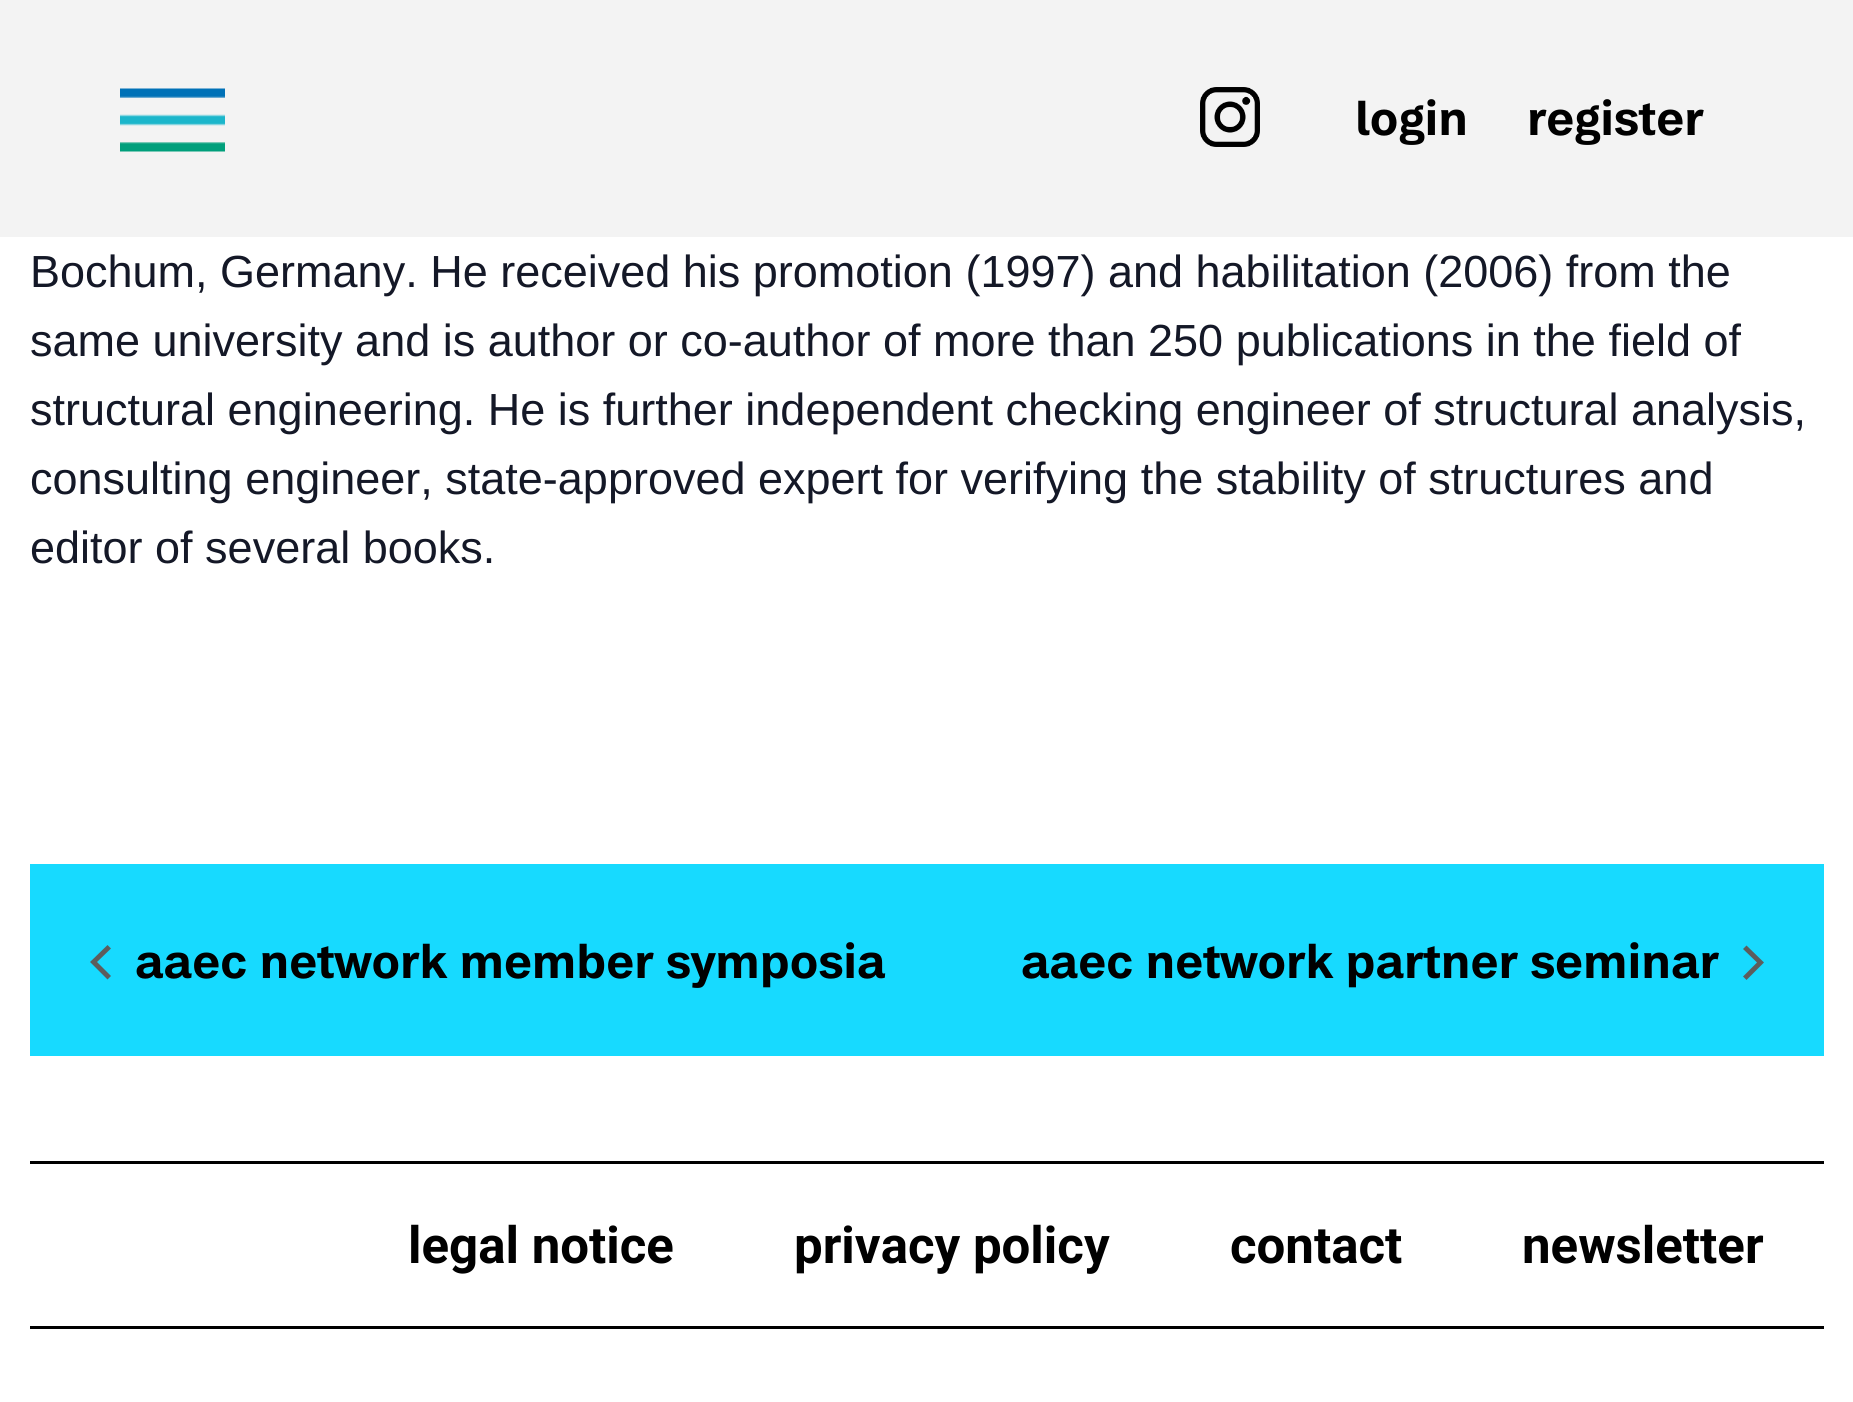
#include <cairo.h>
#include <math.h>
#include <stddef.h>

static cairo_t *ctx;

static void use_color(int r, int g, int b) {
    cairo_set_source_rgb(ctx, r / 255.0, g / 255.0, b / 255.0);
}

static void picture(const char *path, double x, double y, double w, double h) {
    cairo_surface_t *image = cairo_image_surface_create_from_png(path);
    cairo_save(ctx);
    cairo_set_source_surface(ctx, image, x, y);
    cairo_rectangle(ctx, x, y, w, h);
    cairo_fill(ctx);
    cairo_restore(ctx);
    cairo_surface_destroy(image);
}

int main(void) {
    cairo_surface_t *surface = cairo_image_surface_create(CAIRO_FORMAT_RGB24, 1853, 1402);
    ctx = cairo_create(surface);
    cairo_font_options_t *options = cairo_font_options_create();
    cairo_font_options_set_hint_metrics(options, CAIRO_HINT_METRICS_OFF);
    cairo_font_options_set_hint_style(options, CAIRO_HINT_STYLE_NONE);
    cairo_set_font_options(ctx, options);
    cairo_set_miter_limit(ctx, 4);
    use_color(255, 255, 255);
    cairo_paint(ctx);
    use_color(243, 243, 243);
    cairo_rectangle(ctx, 0, 0, 1853, 237);
    cairo_fill(ctx);
    picture("img1.png", 120, 88, 105, 64);
    picture("img2.png", 1200, 87, 60, 60);
    cairo_select_font_face(ctx, "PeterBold", CAIRO_FONT_SLANT_NORMAL, CAIRO_FONT_WEIGHT_BOLD);
    cairo_set_font_size(ctx, 48);
    use_color(0, 0, 0);
    cairo_move_to(ctx, 1355, 135);
    cairo_show_text(ctx, "login");
    cairo_move_to(ctx, 1527, 135);
    cairo_show_text(ctx, "register");
    cairo_select_font_face(ctx, "Liberation Sans", CAIRO_FONT_SLANT_NORMAL, CAIRO_FONT_WEIGHT_NORMAL);
    cairo_set_font_size(ctx, 45);
    use_color(20, 24, 39);
    cairo_move_to(ctx, 30, 287);
    cairo_show_text(ctx, "Bochum, Germany. He received his promotion (1997) and habilitation (2006) from the");
    cairo_move_to(ctx, 30, 356);
    cairo_show_text(ctx, "same university and is author or co-author of more than 250 publications in the field of");
    cairo_move_to(ctx, 30, 425);
    cairo_show_text(ctx, "structural engineering. He is further independent checking engineer of structural analysis,");
    cairo_move_to(ctx, 30, 494);
    cairo_show_text(ctx, "consulting engineer, state-approved expert for verifying the stability of structures and");
    cairo_move_to(ctx, 30, 563);
    cairo_show_text(ctx, "editor of several books.");
    use_color(23, 218, 255);
    cairo_rectangle(ctx, 30, 864, 1794, 192);
    cairo_fill(ctx);
    use_color(93, 93, 93);
    cairo_new_path(ctx);
    cairo_move_to(ctx, 111, 976);
    cairo_line_to(ctx, 107.5, 979.5);
    cairo_line_to(ctx, 90, 962);
    cairo_line_to(ctx, 107.5, 945);
    cairo_line_to(ctx, 111, 948.5);
    cairo_line_to(ctx, 97, 962);
    cairo_close_path(ctx);
    cairo_fill(ctx);
    cairo_select_font_face(ctx, "PeterBold", CAIRO_FONT_SLANT_NORMAL, CAIRO_FONT_WEIGHT_BOLD);
    cairo_set_font_size(ctx, 48);
    use_color(0, 0, 0);
    cairo_move_to(ctx, 135, 978);
    cairo_show_text(ctx, "aaec network member symposia");
    cairo_move_to(ctx, 1021, 978);
    cairo_show_text(ctx, "aaec network partner seminar");
    use_color(93, 93, 93);
    cairo_new_path(ctx);
    cairo_move_to(ctx, 1743, 949);
    cairo_line_to(ctx, 1746.5, 945.5);
    cairo_line_to(ctx, 1764, 962.5);
    cairo_line_to(ctx, 1746.5, 980);
    cairo_line_to(ctx, 1743, 976.5);
    cairo_line_to(ctx, 1757, 962.5);
    cairo_close_path(ctx);
    cairo_fill(ctx);
    use_color(0, 0, 0);
    cairo_rectangle(ctx, 30, 1161, 1794, 3);
    cairo_fill(ctx);
    cairo_rectangle(ctx, 30, 1326, 1794, 3);
    cairo_fill(ctx);
    cairo_select_font_face(ctx, "Roboto", CAIRO_FONT_SLANT_NORMAL, CAIRO_FONT_WEIGHT_BOLD);
    cairo_set_font_size(ctx, 51);
    cairo_move_to(ctx, 408, 1263);
    cairo_show_text(ctx, "legal notice");
    cairo_move_to(ctx, 794, 1263);
    cairo_show_text(ctx, "privacy policy");
    cairo_move_to(ctx, 1230, 1263);
    cairo_show_text(ctx, "contact");
    cairo_move_to(ctx, 1522, 1263);
    cairo_show_text(ctx, "newsletter");
    cairo_surface_write_to_png(surface, "result.png");
    cairo_font_options_destroy(options);
    cairo_destroy(ctx);
    cairo_surface_destroy(surface);
    return 0;
}
